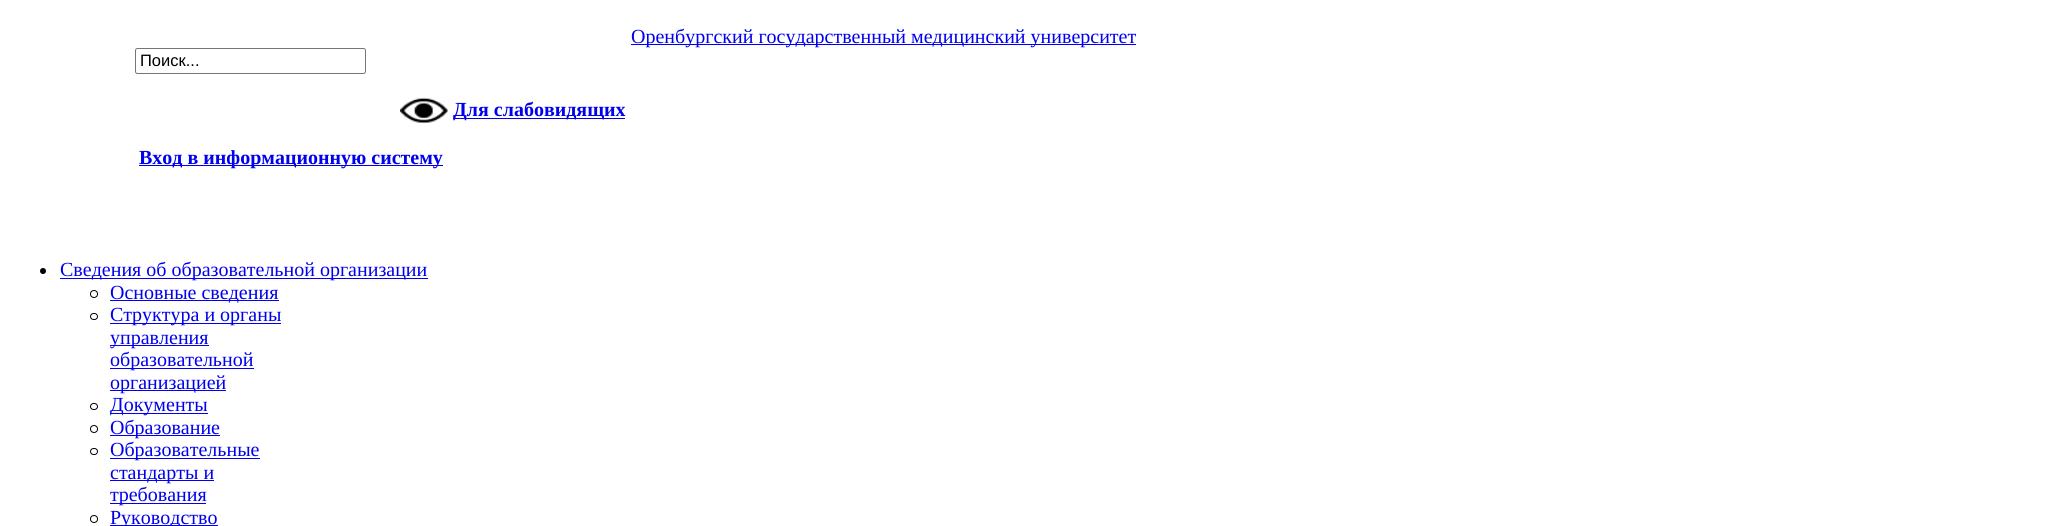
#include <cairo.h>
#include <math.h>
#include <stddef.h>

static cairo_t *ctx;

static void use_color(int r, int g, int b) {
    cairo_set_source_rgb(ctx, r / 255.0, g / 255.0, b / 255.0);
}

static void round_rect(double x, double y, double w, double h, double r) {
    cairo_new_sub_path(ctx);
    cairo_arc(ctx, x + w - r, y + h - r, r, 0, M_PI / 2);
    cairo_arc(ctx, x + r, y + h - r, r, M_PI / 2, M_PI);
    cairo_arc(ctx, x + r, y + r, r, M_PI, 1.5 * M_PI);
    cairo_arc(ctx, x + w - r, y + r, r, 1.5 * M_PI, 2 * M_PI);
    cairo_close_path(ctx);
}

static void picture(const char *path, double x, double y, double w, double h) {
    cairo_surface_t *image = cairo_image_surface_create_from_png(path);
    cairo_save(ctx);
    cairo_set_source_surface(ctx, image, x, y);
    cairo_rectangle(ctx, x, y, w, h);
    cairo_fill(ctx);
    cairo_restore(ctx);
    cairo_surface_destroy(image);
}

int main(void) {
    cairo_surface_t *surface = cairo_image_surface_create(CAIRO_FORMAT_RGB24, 2057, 526);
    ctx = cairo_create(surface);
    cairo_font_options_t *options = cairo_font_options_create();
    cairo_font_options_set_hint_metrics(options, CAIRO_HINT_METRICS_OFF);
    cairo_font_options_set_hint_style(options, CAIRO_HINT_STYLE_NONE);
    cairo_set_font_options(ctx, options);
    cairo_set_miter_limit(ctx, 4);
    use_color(255, 255, 255);
    cairo_paint(ctx);
    use_color(0, 0, 238);
    cairo_rectangle(ctx, 631, 44, 505, 1);
    cairo_fill(ctx);
    cairo_select_font_face(ctx, "Liberation Serif", CAIRO_FONT_SLANT_NORMAL, CAIRO_FONT_WEIGHT_NORMAL);
    cairo_set_font_size(ctx, 20);
    cairo_move_to(ctx, 631, 43);
    cairo_show_text(ctx, "Оренбургский государственный медицинский университет");
    round_rect(135.5, 48.5, 230, 25, 2);
    use_color(118, 118, 118);
    cairo_set_line_width(ctx, 1);
    cairo_stroke(ctx);
    cairo_select_font_face(ctx, "Liberation Sans", CAIRO_FONT_SLANT_NORMAL, CAIRO_FONT_WEIGHT_NORMAL);
    cairo_set_font_size(ctx, 16.5);
    use_color(0, 0, 0);
    cairo_move_to(ctx, 140, 66);
    cairo_show_text(ctx, "Поиск...");
    picture("img1.png", 400, 97, 48, 26);
    use_color(0, 0, 238);
    cairo_rectangle(ctx, 453, 118, 172, 1);
    cairo_fill(ctx);
    cairo_select_font_face(ctx, "Liberation Serif", CAIRO_FONT_SLANT_NORMAL, CAIRO_FONT_WEIGHT_BOLD);
    cairo_set_font_size(ctx, 20);
    cairo_move_to(ctx, 453, 116);
    cairo_show_text(ctx, "Для слабовидящих");
    cairo_rectangle(ctx, 139, 165, 304, 1);
    cairo_fill(ctx);
    cairo_move_to(ctx, 139, 164);
    cairo_show_text(ctx, "Вход в информационную систему");
    use_color(0, 0, 0);
    cairo_new_path(ctx);
    cairo_arc(ctx, 43, 271, 3, 0, 2 * M_PI);
    cairo_fill(ctx);
    use_color(0, 0, 238);
    cairo_rectangle(ctx, 60, 278, 368, 1);
    cairo_fill(ctx);
    cairo_select_font_face(ctx, "Liberation Serif", CAIRO_FONT_SLANT_NORMAL, CAIRO_FONT_WEIGHT_NORMAL);
    cairo_move_to(ctx, 60, 276);
    cairo_show_text(ctx, "Сведения об образовательной организации");
    cairo_new_path(ctx);
    cairo_arc(ctx, 94, 294, 3.5, 0, 2 * M_PI);
    use_color(0, 0, 0);
    cairo_stroke(ctx);
    use_color(0, 0, 238);
    cairo_rectangle(ctx, 110, 300, 169, 1);
    cairo_fill(ctx);
    cairo_move_to(ctx, 110, 299);
    cairo_show_text(ctx, "Основные сведения");
    round_rect(90.5, 313.5, 7, 6, 3);
    use_color(0, 0, 0);
    cairo_stroke(ctx);
    use_color(0, 0, 238);
    cairo_rectangle(ctx, 110, 323, 171, 1);
    cairo_fill(ctx);
    cairo_move_to(ctx, 110, 321);
    cairo_show_text(ctx, "Структура и органы");
    cairo_rectangle(ctx, 110, 345, 99, 1);
    cairo_fill(ctx);
    cairo_move_to(ctx, 110, 344);
    cairo_show_text(ctx, "управления");
    cairo_rectangle(ctx, 110, 368, 144, 1);
    cairo_fill(ctx);
    cairo_move_to(ctx, 110, 366);
    cairo_show_text(ctx, "образовательной");
    cairo_rectangle(ctx, 110, 390, 116, 1);
    cairo_fill(ctx);
    cairo_move_to(ctx, 110, 389);
    cairo_show_text(ctx, "организацией");
    round_rect(90.5, 403.5, 7, 6, 3);
    use_color(0, 0, 0);
    cairo_stroke(ctx);
    use_color(0, 0, 238);
    cairo_rectangle(ctx, 110, 413, 98, 1);
    cairo_fill(ctx);
    cairo_move_to(ctx, 110, 411);
    cairo_show_text(ctx, "Документы");
    cairo_new_path(ctx);
    cairo_arc(ctx, 94, 429, 3.5, 0, 2 * M_PI);
    use_color(0, 0, 0);
    cairo_stroke(ctx);
    use_color(0, 0, 238);
    cairo_rectangle(ctx, 110, 435, 110, 1);
    cairo_fill(ctx);
    cairo_move_to(ctx, 110, 434);
    cairo_show_text(ctx, "Образование");
    round_rect(90.5, 448.5, 7, 6, 3);
    use_color(0, 0, 0);
    cairo_stroke(ctx);
    use_color(0, 0, 238);
    cairo_rectangle(ctx, 110, 458, 150, 1);
    cairo_fill(ctx);
    cairo_move_to(ctx, 110, 456);
    cairo_show_text(ctx, "Образовательные");
    cairo_rectangle(ctx, 110, 480, 104, 1);
    cairo_fill(ctx);
    cairo_move_to(ctx, 110, 479);
    cairo_show_text(ctx, "стандарты и");
    cairo_rectangle(ctx, 110, 503, 96, 1);
    cairo_fill(ctx);
    cairo_move_to(ctx, 110, 501);
    cairo_show_text(ctx, "требования");
    cairo_new_path(ctx);
    cairo_arc(ctx, 94, 519, 3.5, 0, 2 * M_PI);
    use_color(0, 0, 0);
    cairo_stroke(ctx);
    use_color(0, 0, 238);
    cairo_rectangle(ctx, 110, 525, 108, 1);
    cairo_fill(ctx);
    cairo_move_to(ctx, 110, 524);
    cairo_show_text(ctx, "Руководство");
    cairo_surface_write_to_png(surface, "result.png");
    cairo_font_options_destroy(options);
    cairo_destroy(ctx);
    cairo_surface_destroy(surface);
    return 0;
}
